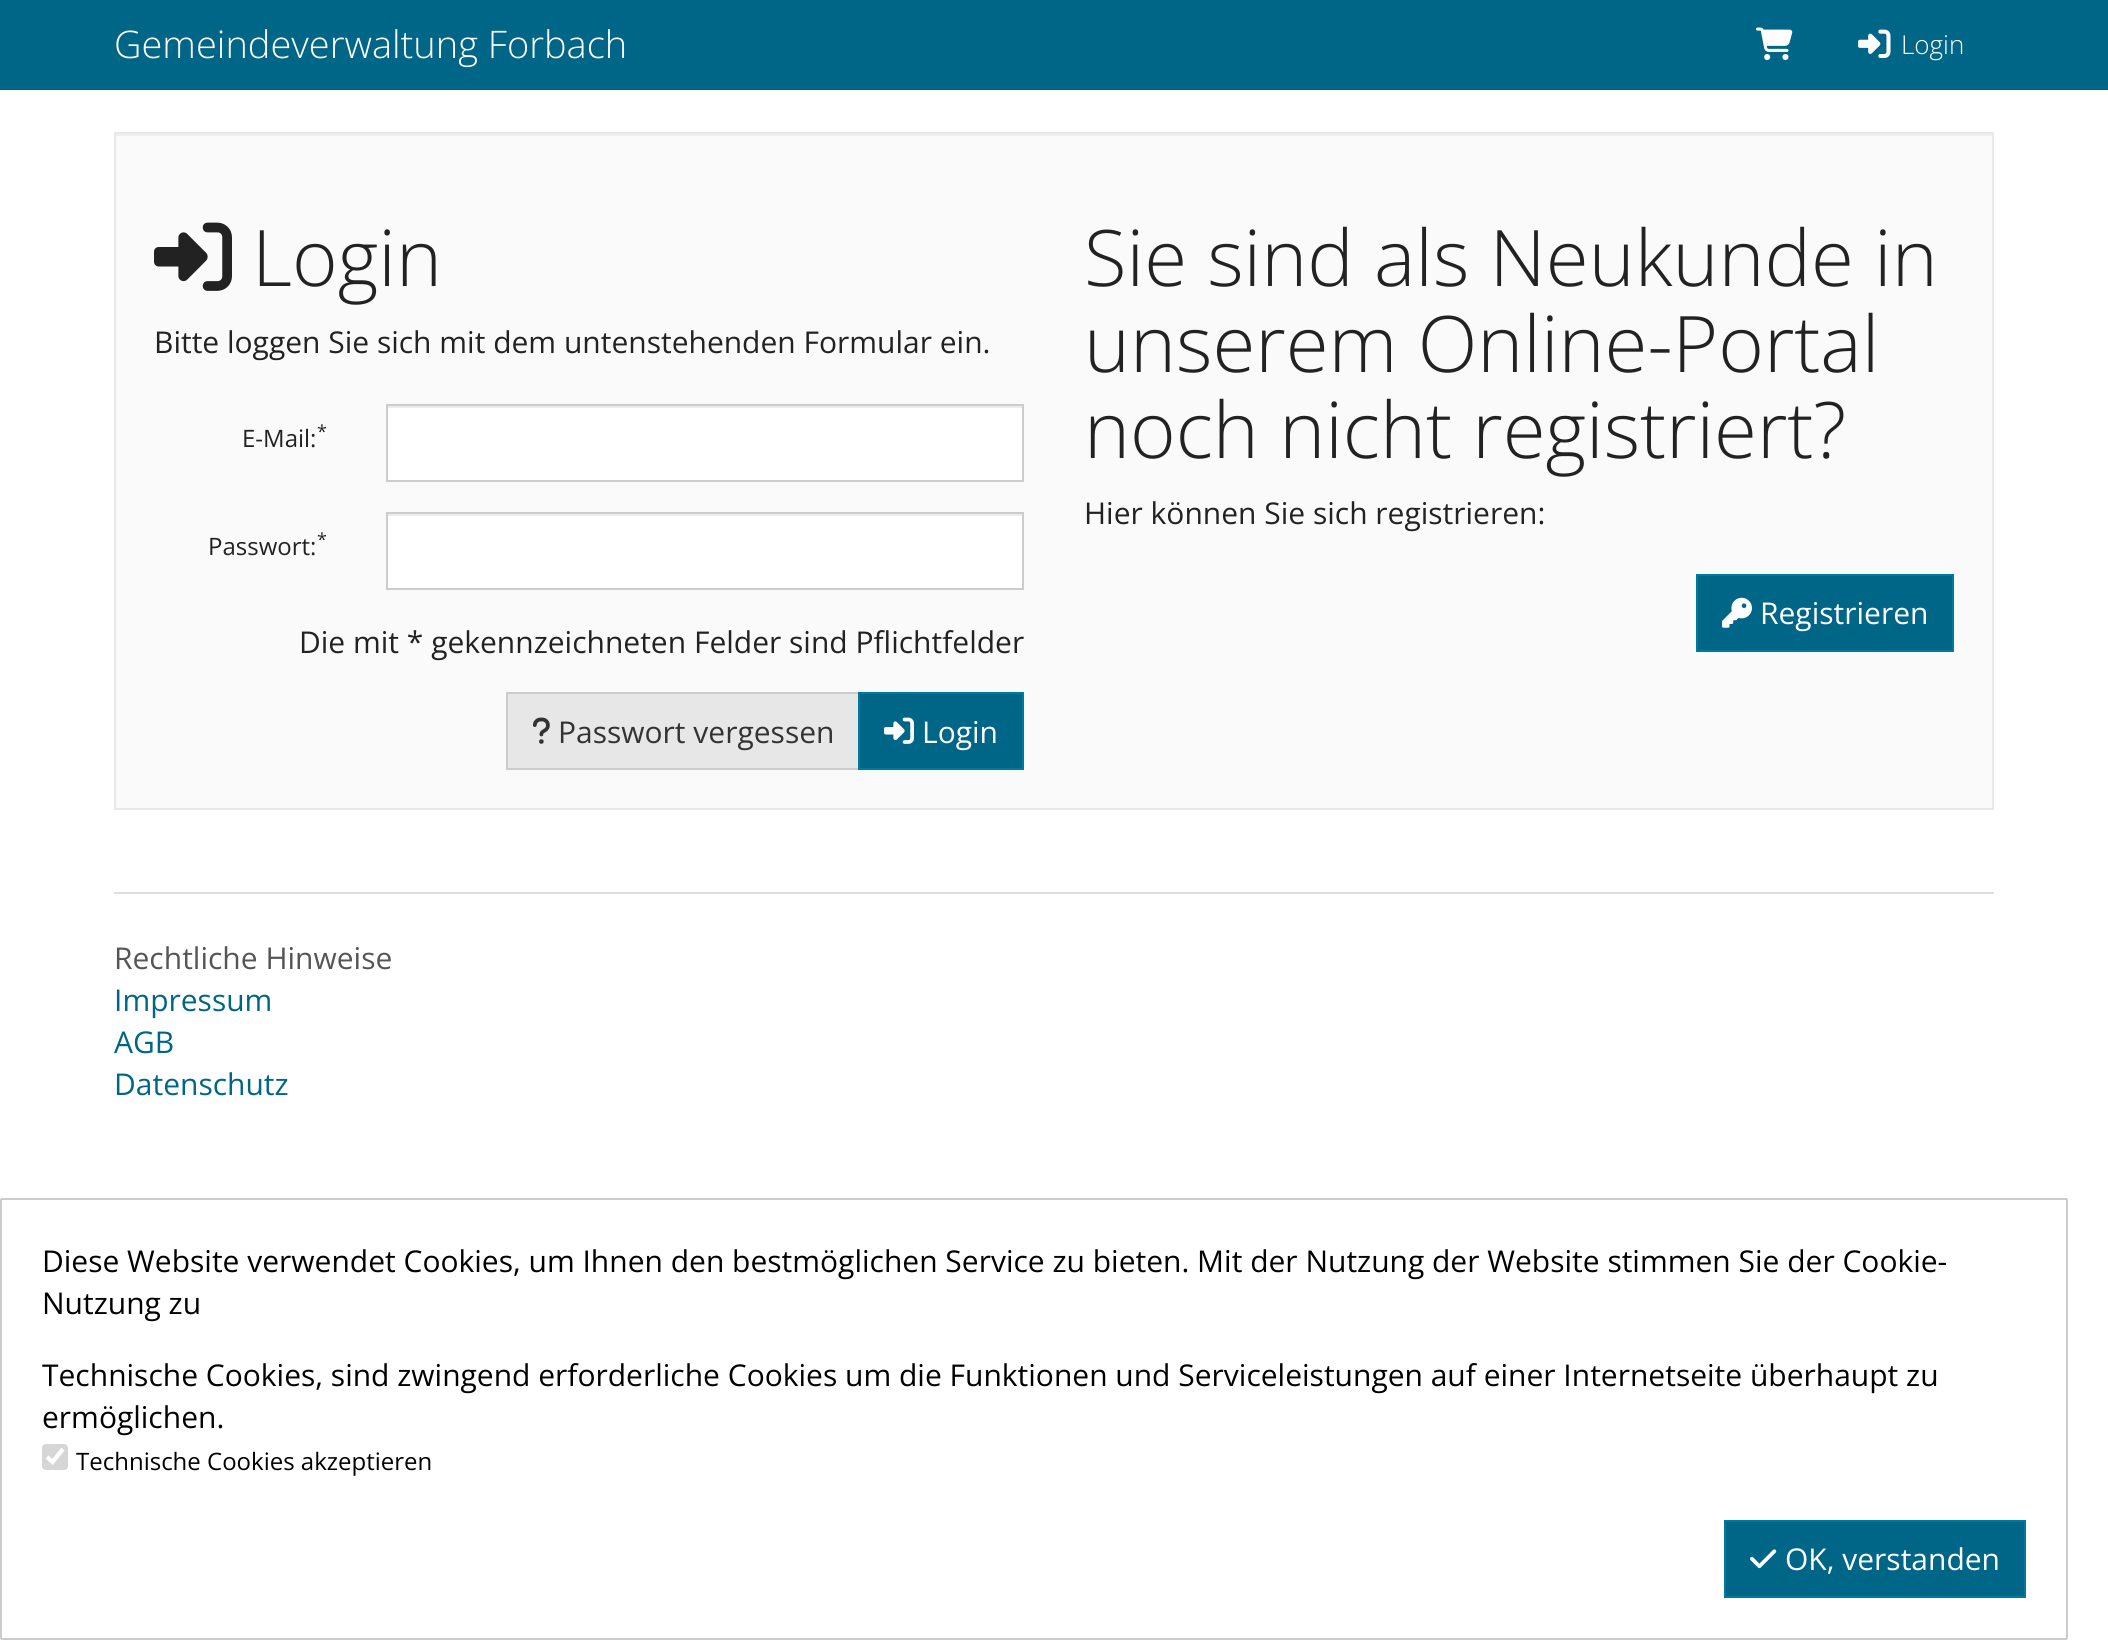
#include <cairo.h>
#include <math.h>
#include <stddef.h>

static cairo_t *ctx;

static void use_color(int r, int g, int b) {
    cairo_set_source_rgb(ctx, r / 255.0, g / 255.0, b / 255.0);
}

static void round_rect(double x, double y, double w, double h, double r) {
    cairo_new_sub_path(ctx);
    cairo_arc(ctx, x + w - r, y + h - r, r, 0, M_PI / 2);
    cairo_arc(ctx, x + r, y + h - r, r, M_PI / 2, M_PI);
    cairo_arc(ctx, x + r, y + r, r, M_PI, 1.5 * M_PI);
    cairo_arc(ctx, x + w - r, y + r, r, 1.5 * M_PI, 2 * M_PI);
    cairo_close_path(ctx);
}

static void picture(const char *path, double x, double y, double w, double h) {
    cairo_surface_t *image = cairo_image_surface_create_from_png(path);
    cairo_save(ctx);
    cairo_set_source_surface(ctx, image, x, y);
    cairo_rectangle(ctx, x, y, w, h);
    cairo_fill(ctx);
    cairo_restore(ctx);
    cairo_surface_destroy(image);
}

int main(void) {
    cairo_surface_t *surface = cairo_image_surface_create(CAIRO_FORMAT_RGB24, 2108, 1640);
    ctx = cairo_create(surface);
    cairo_font_options_t *options = cairo_font_options_create();
    cairo_font_options_set_hint_metrics(options, CAIRO_HINT_METRICS_OFF);
    cairo_font_options_set_hint_style(options, CAIRO_HINT_STYLE_NONE);
    cairo_set_font_options(ctx, options);
    cairo_set_miter_limit(ctx, 4);
    use_color(255, 255, 255);
    cairo_paint(ctx);
    use_color(0, 102, 135);
    cairo_rectangle(ctx, 0, 0, 2108, 90);
    cairo_fill(ctx);
    cairo_select_font_face(ctx, "Open Sans Light", CAIRO_FONT_SLANT_NORMAL, CAIRO_FONT_WEIGHT_NORMAL);
    cairo_set_font_size(ctx, 38);
    use_color(255, 255, 255);
    cairo_move_to(ctx, 114, 58);
    cairo_show_text(ctx, "Gemeindeverwaltung Forbach");
    picture("img1.png", 1756, 27, 37, 34);
    picture("img2.png", 1858, 29, 33, 29);
    cairo_set_font_size(ctx, 26);
    cairo_move_to(ctx, 1901, 54);
    cairo_show_text(ctx, "Login");
    use_color(250, 250, 250);
    cairo_rectangle(ctx, 116, 136, 1876, 672);
    cairo_fill(ctx);
    use_color(238, 238, 238);
    cairo_rectangle(ctx, 116, 134, 1876, 2);
    cairo_fill(ctx);
    cairo_rectangle(ctx, 115, 133, 1878, 676);
    use_color(232, 232, 232);
    cairo_stroke(ctx);
    picture("img3.png", 154, 222, 78, 69);
    cairo_set_font_size(ctx, 78);
    use_color(34, 34, 34);
    cairo_move_to(ctx, 252, 286);
    cairo_show_text(ctx, "Login");
    cairo_select_font_face(ctx, "Open Sans", CAIRO_FONT_SLANT_NORMAL, CAIRO_FONT_WEIGHT_NORMAL);
    cairo_set_font_size(ctx, 30);
    cairo_move_to(ctx, 154, 353);
    cairo_show_text(ctx, "Bitte loggen Sie sich mit dem untenstehenden Formular ein.");
    cairo_set_font_size(ctx, 24);
    cairo_move_to(ctx, 242, 447);
    cairo_show_text(ctx, "E-Mail:");
    cairo_set_font_size(ctx, 18);
    cairo_move_to(ctx, 317, 438);
    cairo_show_text(ctx, "*");
    use_color(255, 255, 255);
    cairo_rectangle(ctx, 388, 408, 634, 72);
    cairo_fill(ctx);
    use_color(236, 236, 236);
    cairo_rectangle(ctx, 388, 406, 634, 2);
    cairo_fill(ctx);
    cairo_rectangle(ctx, 387, 405, 636, 76);
    use_color(204, 204, 204);
    cairo_stroke(ctx);
    cairo_set_font_size(ctx, 24);
    use_color(34, 34, 34);
    cairo_move_to(ctx, 208, 555);
    cairo_show_text(ctx, "Passwort:");
    cairo_set_font_size(ctx, 18);
    cairo_move_to(ctx, 317, 546);
    cairo_show_text(ctx, "*");
    use_color(255, 255, 255);
    cairo_rectangle(ctx, 388, 516, 634, 72);
    cairo_fill(ctx);
    use_color(236, 236, 236);
    cairo_rectangle(ctx, 388, 514, 634, 2);
    cairo_fill(ctx);
    cairo_rectangle(ctx, 387, 513, 636, 76);
    use_color(204, 204, 204);
    cairo_stroke(ctx);
    cairo_set_font_size(ctx, 30);
    use_color(34, 34, 34);
    cairo_move_to(ctx, 299, 653);
    cairo_show_text(ctx, "Die mit * gekennzeichneten Felder sind Pflichtfelder");
    use_color(231, 231, 231);
    cairo_rectangle(ctx, 507, 693, 352, 76);
    cairo_fill_preserve(ctx);
    use_color(204, 204, 204);
    cairo_stroke(ctx);
    picture("img4.png", 533, 717, 17, 27);
    use_color(51, 51, 51);
    cairo_move_to(ctx, 558, 743);
    cairo_show_text(ctx, "Passwort vergessen");
    use_color(0, 102, 135);
    cairo_rectangle(ctx, 859, 693, 164, 76);
    cairo_fill_preserve(ctx);
    use_color(0, 121, 161);
    cairo_stroke(ctx);
    picture("img5.png", 884, 717, 30, 27);
    use_color(255, 255, 255);
    cairo_move_to(ctx, 922, 743);
    cairo_show_text(ctx, "Login");
    cairo_select_font_face(ctx, "Open Sans Light", CAIRO_FONT_SLANT_NORMAL, CAIRO_FONT_WEIGHT_NORMAL);
    cairo_set_font_size(ctx, 78);
    use_color(34, 34, 34);
    cairo_move_to(ctx, 1084, 286);
    cairo_show_text(ctx, "Sie sind als Neukunde in");
    cairo_move_to(ctx, 1084, 372);
    cairo_show_text(ctx, "unserem Online-Portal");
    cairo_move_to(ctx, 1084, 458);
    cairo_show_text(ctx, "noch nicht registriert?");
    cairo_select_font_face(ctx, "Open Sans", CAIRO_FONT_SLANT_NORMAL, CAIRO_FONT_WEIGHT_NORMAL);
    cairo_set_font_size(ctx, 30);
    cairo_move_to(ctx, 1084, 524);
    cairo_show_text(ctx, "Hier können Sie sich registrieren:");
    use_color(0, 102, 135);
    cairo_rectangle(ctx, 1697, 575, 256, 76);
    cairo_fill_preserve(ctx);
    use_color(0, 121, 161);
    cairo_stroke(ctx);
    picture("img6.png", 1722, 597, 30, 31);
    use_color(255, 255, 255);
    cairo_move_to(ctx, 1760, 624);
    cairo_show_text(ctx, "Registrieren");
    use_color(221, 221, 221);
    cairo_rectangle(ctx, 114, 892, 1880, 2);
    cairo_fill(ctx);
    use_color(85, 85, 85);
    cairo_move_to(ctx, 114, 969);
    cairo_show_text(ctx, "Rechtliche Hinweise");
    use_color(0, 102, 135);
    cairo_move_to(ctx, 114, 1011);
    cairo_show_text(ctx, "Impressum");
    cairo_move_to(ctx, 114, 1053);
    cairo_show_text(ctx, "AGB");
    cairo_move_to(ctx, 114, 1095);
    cairo_show_text(ctx, "Datenschutz");
    round_rect(1, 1199, 2066, 440, 1);
    use_color(204, 204, 204);
    cairo_stroke(ctx);
    use_color(0, 0, 0);
    cairo_move_to(ctx, 42, 1272);
    cairo_show_text(ctx, "Diese Website verwendet Cookies, um Ihnen den bestmöglichen Service zu bieten. Mit der Nutzung der Website stimmen Sie der Cookie-");
    cairo_move_to(ctx, 42, 1314);
    cairo_show_text(ctx, "Nutzung zu");
    cairo_move_to(ctx, 42, 1386);
    cairo_show_text(ctx, "Technische Cookies, sind zwingend erforderliche Cookies um die Funktionen und Serviceleistungen auf einer Internetseite überhaupt zu");
    cairo_move_to(ctx, 42, 1428);
    cairo_show_text(ctx, "ermöglichen.");
    use_color(214, 214, 214);
    round_rect(42, 1444, 26, 26, 4);
    cairo_fill(ctx);
    cairo_new_path(ctx);
    cairo_move_to(ctx, 47, 1457);
    cairo_line_to(ctx, 52.5, 1462);
    cairo_line_to(ctx, 63, 1449);
    use_color(255, 255, 255);
    cairo_set_line_width(ctx, 4.2);
    cairo_stroke(ctx);
    cairo_set_font_size(ctx, 24);
    use_color(0, 0, 0);
    cairo_move_to(ctx, 76, 1470);
    cairo_show_text(ctx, "Technische Cookies akzeptieren");
    use_color(0, 102, 135);
    cairo_rectangle(ctx, 1725, 1521, 300, 76);
    cairo_fill_preserve(ctx);
    use_color(0, 121, 161);
    cairo_set_line_width(ctx, 2);
    cairo_stroke(ctx);
    picture("img7.png", 1750, 1549, 27, 20);
    cairo_set_font_size(ctx, 30);
    use_color(255, 255, 255);
    cairo_move_to(ctx, 1785, 1570);
    cairo_show_text(ctx, "OK, verstanden");
    cairo_surface_write_to_png(surface, "result.png");
    cairo_font_options_destroy(options);
    cairo_destroy(ctx);
    cairo_surface_destroy(surface);
    return 0;
}
